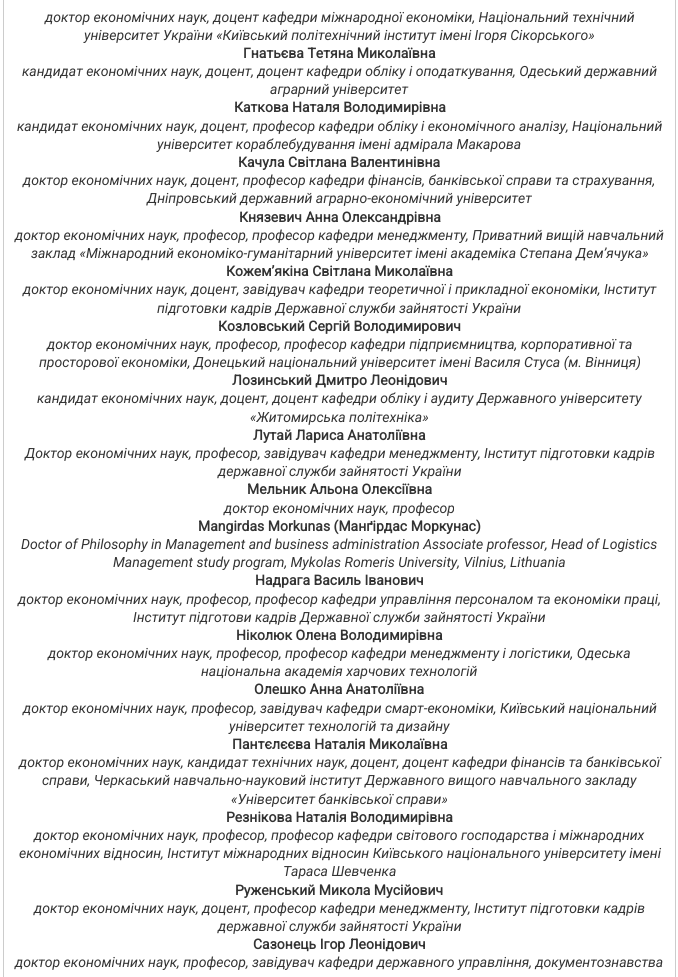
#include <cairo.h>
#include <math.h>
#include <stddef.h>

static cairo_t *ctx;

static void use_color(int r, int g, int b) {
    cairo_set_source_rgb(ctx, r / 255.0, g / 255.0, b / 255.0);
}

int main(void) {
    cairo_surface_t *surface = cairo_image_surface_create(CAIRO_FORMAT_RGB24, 678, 977);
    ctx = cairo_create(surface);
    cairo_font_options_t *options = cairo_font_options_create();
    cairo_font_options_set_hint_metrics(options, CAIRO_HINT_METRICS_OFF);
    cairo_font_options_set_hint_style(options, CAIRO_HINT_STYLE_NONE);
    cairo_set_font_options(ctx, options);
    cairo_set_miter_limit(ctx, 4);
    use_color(255, 255, 255);
    cairo_paint(ctx);
    cairo_rectangle(ctx, 3.5, -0.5, 672, 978);
    use_color(204, 204, 204);
    cairo_set_line_width(ctx, 1);
    cairo_stroke(ctx);
    cairo_select_font_face(ctx, "Roboto", CAIRO_FONT_SLANT_ITALIC, CAIRO_FONT_WEIGHT_NORMAL);
    cairo_set_font_size(ctx, 14);
    use_color(51, 51, 51);
    cairo_move_to(ctx, 45, 22);
    cairo_show_text(ctx, "доктор економічних наук, доцент кафедри міжнародної економіки, Національний технічний");
    cairo_move_to(ctx, 84, 40);
    cairo_show_text(ctx, "університет України «Київський політехнічний інститут імені Ігоря Сікорського»");
    cairo_select_font_face(ctx, "Roboto", CAIRO_FONT_SLANT_NORMAL, CAIRO_FONT_WEIGHT_BOLD);
    cairo_move_to(ctx, 243, 58);
    cairo_show_text(ctx, "Гнатьєва Тетяна Миколаївна");
    cairo_select_font_face(ctx, "Roboto", CAIRO_FONT_SLANT_ITALIC, CAIRO_FONT_WEIGHT_NORMAL);
    cairo_move_to(ctx, 22, 76);
    cairo_show_text(ctx, "кандидат економічних наук, доцент, доцент кафедри обліку і оподаткування, Одеський державний");
    cairo_move_to(ctx, 270, 94);
    cairo_show_text(ctx, "аграрний університет");
    cairo_select_font_face(ctx, "Roboto", CAIRO_FONT_SLANT_NORMAL, CAIRO_FONT_WEIGHT_BOLD);
    cairo_move_to(ctx, 234, 112);
    cairo_show_text(ctx, "Каткова Наталя Володимирівна");
    cairo_select_font_face(ctx, "Roboto", CAIRO_FONT_SLANT_ITALIC, CAIRO_FONT_WEIGHT_NORMAL);
    cairo_move_to(ctx, 17, 131);
    cairo_show_text(ctx, "кандидат економічних наук, доцент, професор кафедри обліку і економічного аналізу, Національний");
    cairo_move_to(ctx, 157, 149);
    cairo_show_text(ctx, "університет кораблебудування імені адмірала Макарова");
    cairo_select_font_face(ctx, "Roboto", CAIRO_FONT_SLANT_NORMAL, CAIRO_FONT_WEIGHT_BOLD);
    cairo_move_to(ctx, 238, 167);
    cairo_show_text(ctx, "Качула Світлана Валентинівна");
    cairo_select_font_face(ctx, "Roboto", CAIRO_FONT_SLANT_ITALIC, CAIRO_FONT_WEIGHT_NORMAL);
    cairo_move_to(ctx, 23, 185);
    cairo_show_text(ctx, "доктор економічних наук, доцент, професор кафедри фінансів, банківської справи та страхування,");
    cairo_move_to(ctx, 147, 203);
    cairo_show_text(ctx, "Дніпровський державний аграрно-економічний університет");
    cairo_select_font_face(ctx, "Roboto", CAIRO_FONT_SLANT_NORMAL, CAIRO_FONT_WEIGHT_BOLD);
    cairo_move_to(ctx, 239, 222);
    cairo_show_text(ctx, "Князевич Анна Олександрівна");
    cairo_select_font_face(ctx, "Roboto", CAIRO_FONT_SLANT_ITALIC, CAIRO_FONT_WEIGHT_NORMAL);
    cairo_move_to(ctx, 15, 240);
    cairo_show_text(ctx, "доктор економічних наук, професор, професор кафедри менеджменту, Приватний вищій навчальний");
    cairo_move_to(ctx, 31, 258);
    cairo_show_text(ctx, "заклад «Міжнародний економіко-гуманітарний університет імені академіка Степана Дем’ячука»");
    cairo_select_font_face(ctx, "Roboto", CAIRO_FONT_SLANT_NORMAL, CAIRO_FONT_WEIGHT_BOLD);
    cairo_move_to(ctx, 226, 276);
    cairo_show_text(ctx, "Кожем’якіна Світлана Миколаївна");
    cairo_select_font_face(ctx, "Roboto", CAIRO_FONT_SLANT_ITALIC, CAIRO_FONT_WEIGHT_NORMAL);
    cairo_move_to(ctx, 23, 294);
    cairo_show_text(ctx, "доктор економічних наук, доцент, завідувач кафедри теоретичної і прикладної економіки, Інститут");
    cairo_move_to(ctx, 157, 313);
    cairo_show_text(ctx, "підготовки кадрів Державної служби зайнятості України");
    cairo_select_font_face(ctx, "Roboto", CAIRO_FONT_SLANT_NORMAL, CAIRO_FONT_WEIGHT_BOLD);
    cairo_move_to(ctx, 218, 331);
    cairo_show_text(ctx, "Козловський Сергій Володимирович");
    cairo_select_font_face(ctx, "Roboto", CAIRO_FONT_SLANT_ITALIC, CAIRO_FONT_WEIGHT_NORMAL);
    cairo_move_to(ctx, 47, 349);
    cairo_show_text(ctx, "доктор економічних наук, професор, професор кафедри підприємництва, корпоративної та");
    cairo_move_to(ctx, 39, 367);
    cairo_show_text(ctx, "просторової економіки, Донецький національний університет імені Василя Стуса (м. Вінниця)");
    cairo_select_font_face(ctx, "Roboto", CAIRO_FONT_SLANT_NORMAL, CAIRO_FONT_WEIGHT_BOLD);
    cairo_move_to(ctx, 232, 385);
    cairo_show_text(ctx, "Лозинський Дмитро Леонідович");
    cairo_select_font_face(ctx, "Roboto", CAIRO_FONT_SLANT_ITALIC, CAIRO_FONT_WEIGHT_NORMAL);
    cairo_move_to(ctx, 37, 403);
    cairo_show_text(ctx, "кандидат економічних наук, доцент, доцент кафедри обліку і аудиту Державного університету");
    cairo_move_to(ctx, 250, 422);
    cairo_show_text(ctx, "«Житомирська політехніка»");
    cairo_select_font_face(ctx, "Roboto", CAIRO_FONT_SLANT_NORMAL, CAIRO_FONT_WEIGHT_BOLD);
    cairo_move_to(ctx, 253, 440);
    cairo_show_text(ctx, "Лутай Лариса Анатоліївна");
    cairo_select_font_face(ctx, "Roboto", CAIRO_FONT_SLANT_ITALIC, CAIRO_FONT_WEIGHT_NORMAL);
    cairo_move_to(ctx, 25, 458);
    cairo_show_text(ctx, "Доктор економічних наук, професор, завідувач кафедри менеджменту, Інститут підготовки кадрів");
    cairo_move_to(ctx, 218, 476);
    cairo_show_text(ctx, "державної служби зайнятості України");
    cairo_select_font_face(ctx, "Roboto", CAIRO_FONT_SLANT_NORMAL, CAIRO_FONT_WEIGHT_BOLD);
    cairo_move_to(ctx, 247, 494);
    cairo_show_text(ctx, "Мельник Альона Олексіївна");
    cairo_select_font_face(ctx, "Roboto", CAIRO_FONT_SLANT_ITALIC, CAIRO_FONT_WEIGHT_NORMAL);
    cairo_move_to(ctx, 224, 513);
    cairo_show_text(ctx, "доктор економічних наук, професор");
    cairo_select_font_face(ctx, "Roboto", CAIRO_FONT_SLANT_NORMAL, CAIRO_FONT_WEIGHT_BOLD);
    cairo_move_to(ctx, 198, 531);
    cairo_show_text(ctx, "Mangirdas Morkunas (Манґірдас Моркунас)");
    cairo_select_font_face(ctx, "Roboto", CAIRO_FONT_SLANT_ITALIC, CAIRO_FONT_WEIGHT_NORMAL);
    cairo_move_to(ctx, 21, 549);
    cairo_show_text(ctx, "Doctor of Philosophy in Management and business administration Associate professor, Head of Logistics");
    cairo_move_to(ctx, 113, 567);
    cairo_show_text(ctx, "Management study program, Mykolas Romeris University, Vilnius, Lithuania");
    cairo_select_font_face(ctx, "Roboto", CAIRO_FONT_SLANT_NORMAL, CAIRO_FONT_WEIGHT_BOLD);
    cairo_move_to(ctx, 255, 585);
    cairo_show_text(ctx, "Надрага Василь Іванович");
    cairo_select_font_face(ctx, "Roboto", CAIRO_FONT_SLANT_ITALIC, CAIRO_FONT_WEIGHT_NORMAL);
    cairo_move_to(ctx, 18, 604);
    cairo_show_text(ctx, "доктор економічних наук, професор, професор кафедри управління персоналом та економіки праці,");
    cairo_move_to(ctx, 133, 622);
    cairo_show_text(ctx, "Інститут підготови кадрів Державної служби зайнятості України");
    cairo_select_font_face(ctx, "Roboto", CAIRO_FONT_SLANT_NORMAL, CAIRO_FONT_WEIGHT_BOLD);
    cairo_move_to(ctx, 236, 640);
    cairo_show_text(ctx, "Ніколюк Олена Володимирівна");
    cairo_select_font_face(ctx, "Roboto", CAIRO_FONT_SLANT_ITALIC, CAIRO_FONT_WEIGHT_NORMAL);
    cairo_move_to(ctx, 48, 658);
    cairo_show_text(ctx, "доктор економічних наук, професор, професор кафедри менеджменту і логістики, Одеська");
    cairo_move_to(ctx, 201, 676);
    cairo_show_text(ctx, "національна академія харчових технологій");
    cairo_select_font_face(ctx, "Roboto", CAIRO_FONT_SLANT_NORMAL, CAIRO_FONT_WEIGHT_BOLD);
    cairo_move_to(ctx, 254, 694);
    cairo_show_text(ctx, "Олешко Анна Анатоліївна");
    cairo_select_font_face(ctx, "Roboto", CAIRO_FONT_SLANT_ITALIC, CAIRO_FONT_WEIGHT_NORMAL);
    cairo_move_to(ctx, 23, 713);
    cairo_show_text(ctx, "доктор економічних наук, професор, завідувач кафедри смарт-економіки, Київський національний");
    cairo_move_to(ctx, 229, 731);
    cairo_show_text(ctx, "університет технологій та дизайну");
    cairo_select_font_face(ctx, "Roboto", CAIRO_FONT_SLANT_NORMAL, CAIRO_FONT_WEIGHT_BOLD);
    cairo_move_to(ctx, 232, 749);
    cairo_show_text(ctx, "Пантєлєєва Наталія Миколаївна");
    cairo_select_font_face(ctx, "Roboto", CAIRO_FONT_SLANT_ITALIC, CAIRO_FONT_WEIGHT_NORMAL);
    cairo_move_to(ctx, 19, 767);
    cairo_show_text(ctx, "доктор економічних наук, кандидат технічних наук, доцент, доцент кафедри фінансів та банківської");
    cairo_move_to(ctx, 42, 785);
    cairo_show_text(ctx, "справи, Черкаський навчально-науковий інститут Державного вищого навчального закладу");
    cairo_move_to(ctx, 231, 804);
    cairo_show_text(ctx, "«Університет банківської справи»");
    cairo_select_font_face(ctx, "Roboto", CAIRO_FONT_SLANT_NORMAL, CAIRO_FONT_WEIGHT_BOLD);
    cairo_move_to(ctx, 226, 822);
    cairo_show_text(ctx, "Резнікова Наталія Володимирівна");
    cairo_select_font_face(ctx, "Roboto", CAIRO_FONT_SLANT_ITALIC, CAIRO_FONT_WEIGHT_NORMAL);
    cairo_move_to(ctx, 34, 840);
    cairo_show_text(ctx, "доктор економічних наук, професор, професор кафедри світового господарства і міжнародних");
    cairo_move_to(ctx, 19, 858);
    cairo_show_text(ctx, "економічних відносин, Інститут міжнародних відносин Київського національного університету імені");
    cairo_move_to(ctx, 283, 876);
    cairo_show_text(ctx, "Тараса Шевченка");
    cairo_select_font_face(ctx, "Roboto", CAIRO_FONT_SLANT_NORMAL, CAIRO_FONT_WEIGHT_BOLD);
    cairo_move_to(ctx, 235, 895);
    cairo_show_text(ctx, "Руженський Микола Мусійович");
    cairo_select_font_face(ctx, "Roboto", CAIRO_FONT_SLANT_ITALIC, CAIRO_FONT_WEIGHT_NORMAL);
    cairo_move_to(ctx, 34, 913);
    cairo_show_text(ctx, "доктор економічних наук, доцент, професор кафедри менеджменту, Інститут підготовки кадрів");
    cairo_move_to(ctx, 218, 931);
    cairo_show_text(ctx, "державної служби зайнятості України");
    cairo_select_font_face(ctx, "Roboto", CAIRO_FONT_SLANT_NORMAL, CAIRO_FONT_WEIGHT_BOLD);
    cairo_move_to(ctx, 253, 949);
    cairo_show_text(ctx, "Сазонець Ігор Леонідович");
    cairo_select_font_face(ctx, "Roboto", CAIRO_FONT_SLANT_ITALIC, CAIRO_FONT_WEIGHT_NORMAL);
    cairo_move_to(ctx, 15, 967);
    cairo_show_text(ctx, "доктор економічних наук, професор, завідувач кафедри державного управління, документознавства");
    cairo_surface_write_to_png(surface, "result.png");
    cairo_font_options_destroy(options);
    cairo_destroy(ctx);
    cairo_surface_destroy(surface);
    return 0;
}
